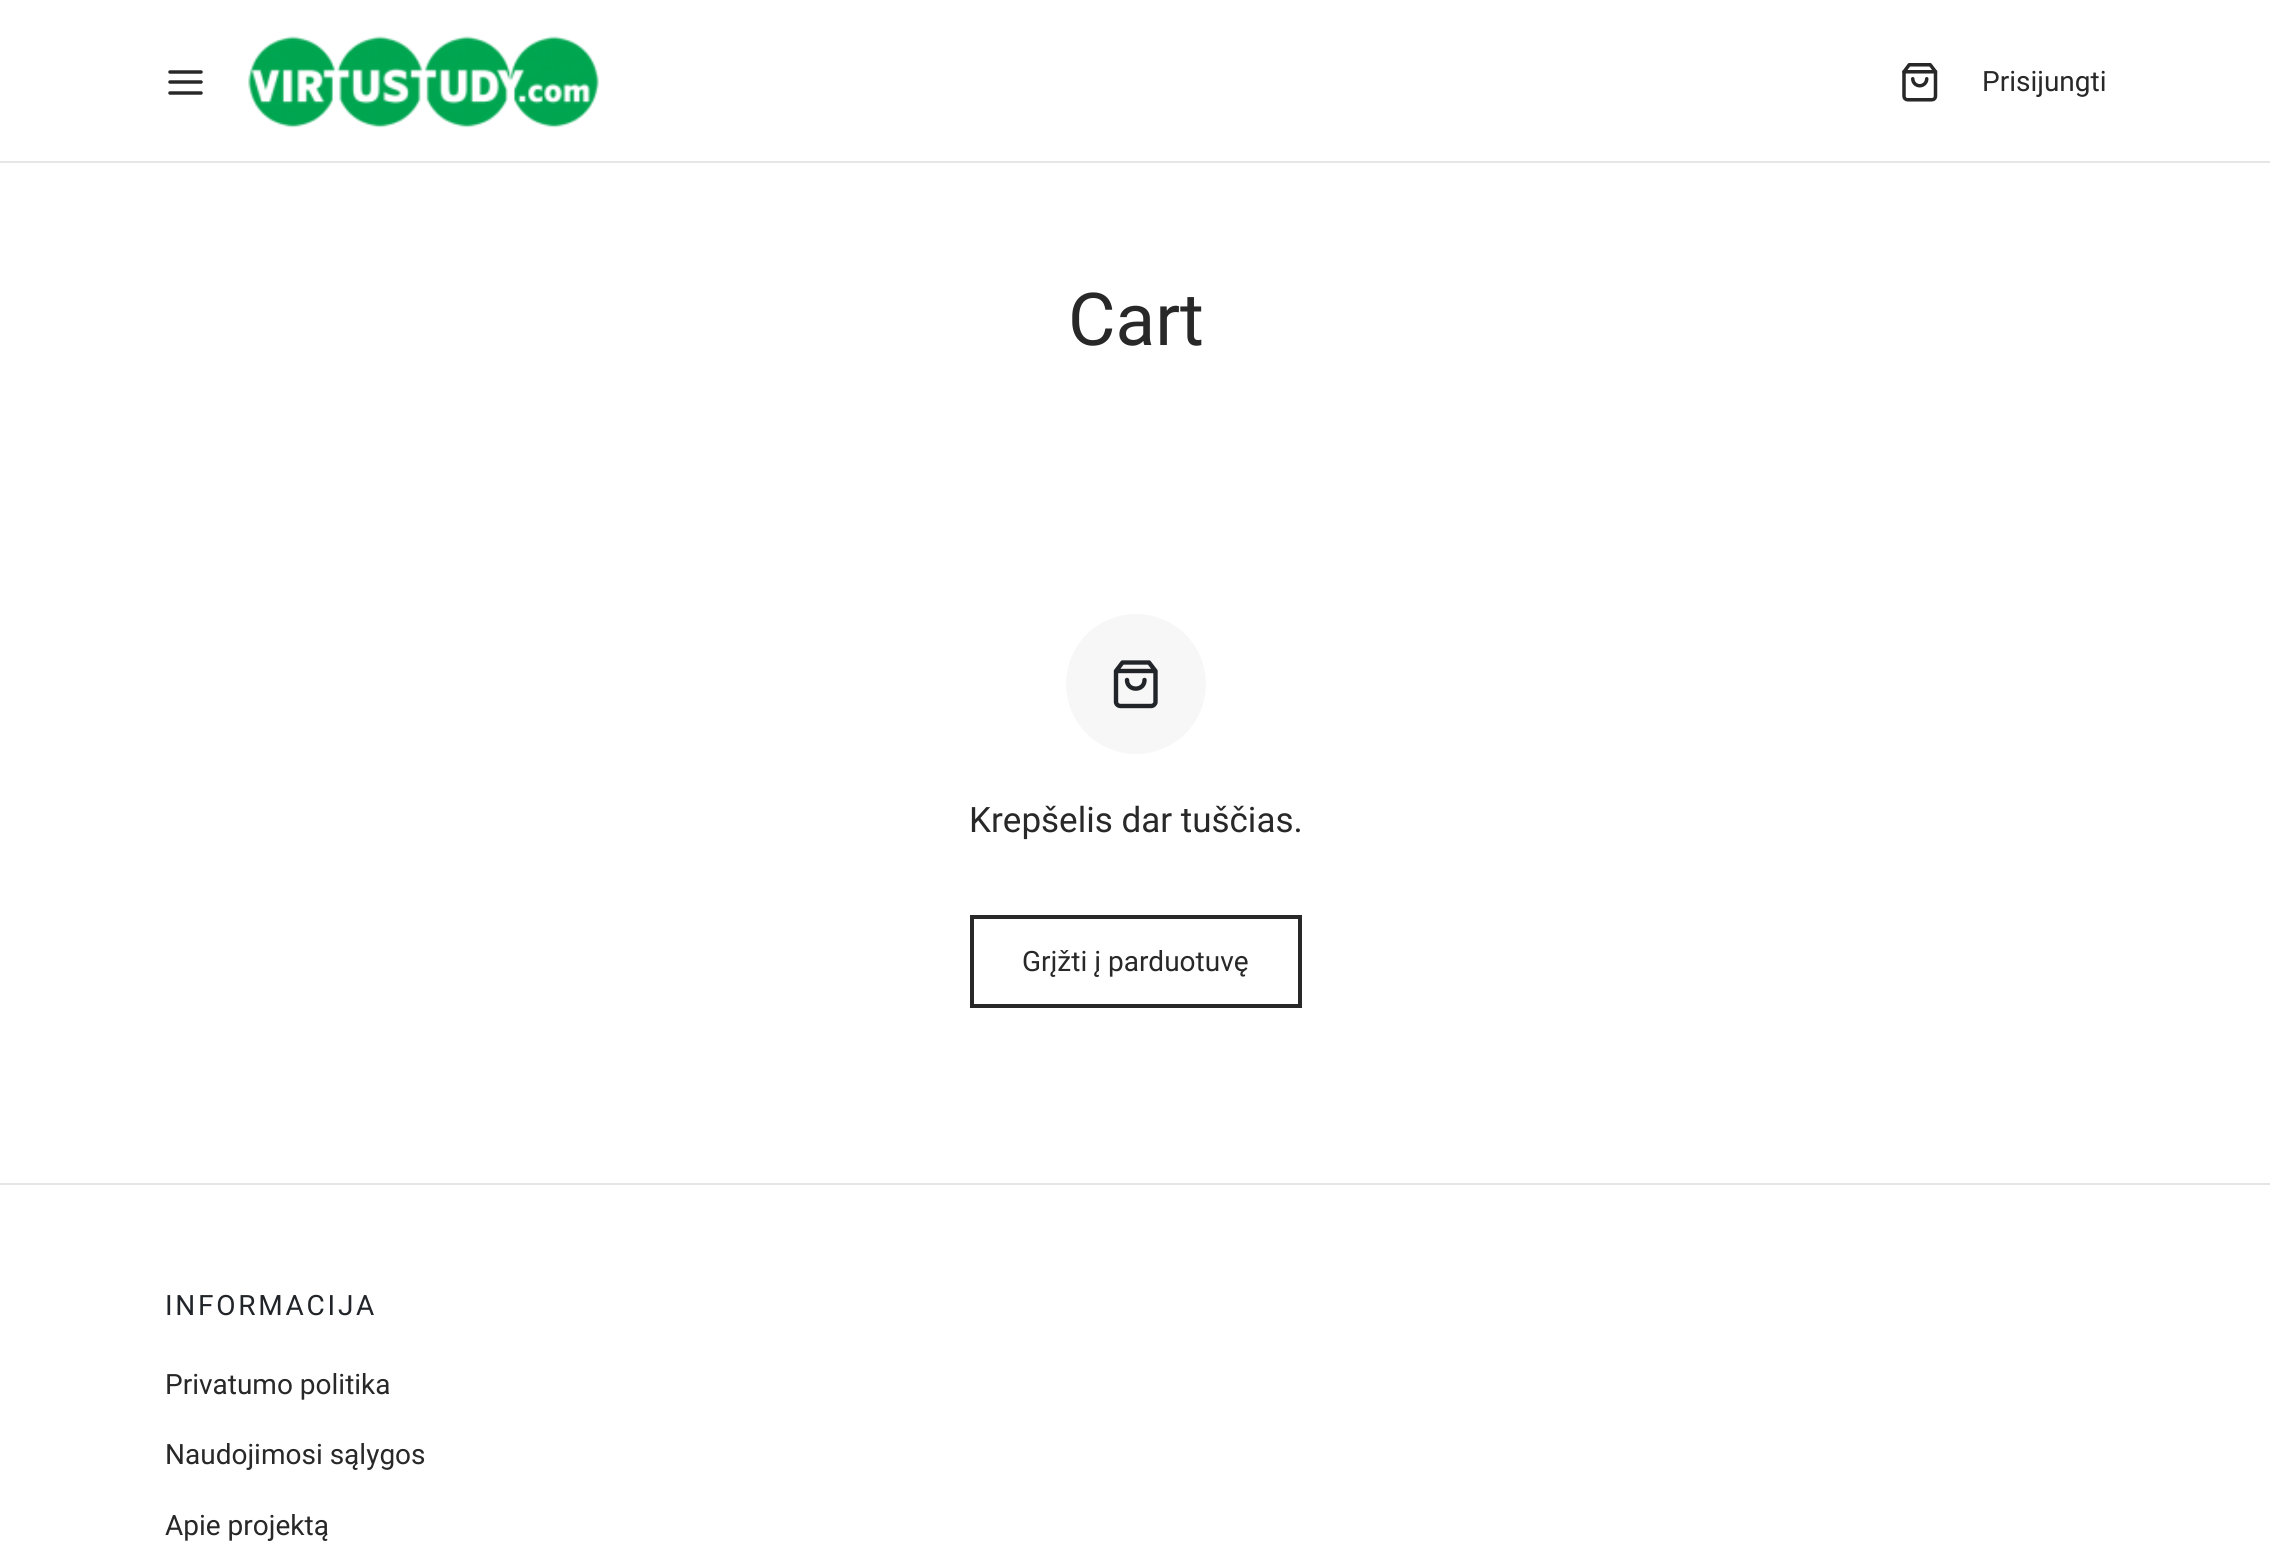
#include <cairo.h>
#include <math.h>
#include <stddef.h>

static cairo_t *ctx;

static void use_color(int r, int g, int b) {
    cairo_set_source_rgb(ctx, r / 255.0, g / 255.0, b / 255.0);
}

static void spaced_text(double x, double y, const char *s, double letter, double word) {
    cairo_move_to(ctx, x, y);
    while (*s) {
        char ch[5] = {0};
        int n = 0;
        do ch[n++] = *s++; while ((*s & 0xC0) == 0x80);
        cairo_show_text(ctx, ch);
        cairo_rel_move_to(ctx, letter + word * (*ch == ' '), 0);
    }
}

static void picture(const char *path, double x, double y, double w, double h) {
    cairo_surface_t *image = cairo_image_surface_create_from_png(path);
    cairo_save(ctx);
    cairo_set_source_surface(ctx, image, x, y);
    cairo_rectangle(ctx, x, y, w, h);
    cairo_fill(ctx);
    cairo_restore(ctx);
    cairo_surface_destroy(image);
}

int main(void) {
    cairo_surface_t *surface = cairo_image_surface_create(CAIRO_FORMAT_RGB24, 2270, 1541);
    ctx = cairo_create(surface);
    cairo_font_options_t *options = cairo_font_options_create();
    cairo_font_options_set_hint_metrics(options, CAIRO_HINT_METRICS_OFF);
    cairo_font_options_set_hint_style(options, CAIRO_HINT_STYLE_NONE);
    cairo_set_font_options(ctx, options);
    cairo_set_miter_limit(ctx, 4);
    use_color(255, 255, 255);
    cairo_paint(ctx);
    cairo_new_path(ctx);
    cairo_move_to(ctx, 170, 82);
    cairo_line_to(ctx, 201, 82);
    cairo_move_to(ctx, 170, 72);
    cairo_line_to(ctx, 201, 72);
    cairo_move_to(ctx, 170, 93);
    cairo_line_to(ctx, 201, 93);
    use_color(40, 40, 40);
    cairo_set_line_width(ctx, 3.5);
    cairo_set_line_cap(ctx, CAIRO_LINE_CAP_ROUND);
    cairo_set_line_join(ctx, CAIRO_LINE_JOIN_ROUND);
    cairo_stroke(ctx);
    picture("img1.png", 248, 36, 351, 92);
    picture("img2.png", 1902, 63, 36, 39);
    cairo_select_font_face(ctx, "Roboto", CAIRO_FONT_SLANT_NORMAL, CAIRO_FONT_WEIGHT_NORMAL);
    cairo_set_font_size(ctx, 28);
    cairo_move_to(ctx, 1982, 91);
    cairo_show_text(ctx, "Prisijungti");
    use_color(230, 230, 230);
    cairo_rectangle(ctx, 0, 161, 2270, 2);
    cairo_fill(ctx);
    cairo_set_font_size(ctx, 73);
    use_color(40, 40, 40);
    cairo_move_to(ctx, 1068, 345);
    cairo_show_text(ctx, "Cart");
    use_color(247, 247, 247);
    cairo_new_path(ctx);
    cairo_arc(ctx, 1136, 684, 70, 0, 2 * M_PI);
    cairo_fill(ctx);
    cairo_new_path(ctx);
    cairo_move_to(ctx, 1122.5, 662.5);
    cairo_line_to(ctx, 1116, 671);
    cairo_line_to(ctx, 1116, 702);
    cairo_curve_to(ctx, 1116, 704, 1118, 706, 1120.5, 706);
    cairo_line_to(ctx, 1151, 706);
    cairo_curve_to(ctx, 1153.5, 706, 1155.5, 704, 1155.5, 702);
    cairo_line_to(ctx, 1155.5, 671);
    cairo_line_to(ctx, 1149, 662.5);
    cairo_close_path(ctx);
    cairo_move_to(ctx, 1116, 671);
    cairo_line_to(ctx, 1155.5, 671);
    cairo_move_to(ctx, 1144.5, 680);
    cairo_curve_to(ctx, 1144.5, 691.5, 1127, 691.5, 1127, 680);
    use_color(33, 37, 41);
    cairo_set_line_width(ctx, 4.4);
    cairo_stroke(ctx);
    cairo_set_font_size(ctx, 35);
    use_color(40, 40, 40);
    cairo_move_to(ctx, 969, 832);
    cairo_show_text(ctx, "Krepšelis dar tuščias.");
    cairo_rectangle(ctx, 972, 917, 328, 89);
    cairo_set_line_width(ctx, 4);
    cairo_set_line_cap(ctx, CAIRO_LINE_CAP_BUTT);
    cairo_set_line_join(ctx, CAIRO_LINE_JOIN_MITER);
    cairo_stroke(ctx);
    cairo_set_font_size(ctx, 28);
    cairo_move_to(ctx, 1022, 971);
    cairo_show_text(ctx, "Grįžti į parduotuvę");
    use_color(230, 230, 230);
    cairo_rectangle(ctx, 0, 1183, 2270, 2);
    cairo_fill(ctx);
    use_color(33, 37, 41);
    spaced_text(165, 1315, "INFORMACIJA", 2.75, 0);
    use_color(40, 40, 40);
    cairo_move_to(ctx, 165, 1394);
    cairo_show_text(ctx, "Privatumo politika");
    cairo_move_to(ctx, 165, 1464);
    cairo_show_text(ctx, "Naudojimosi sąlygos");
    cairo_move_to(ctx, 165, 1535);
    cairo_show_text(ctx, "Apie projektą");
    cairo_surface_write_to_png(surface, "result.png");
    cairo_font_options_destroy(options);
    cairo_destroy(ctx);
    cairo_surface_destroy(surface);
    return 0;
}
